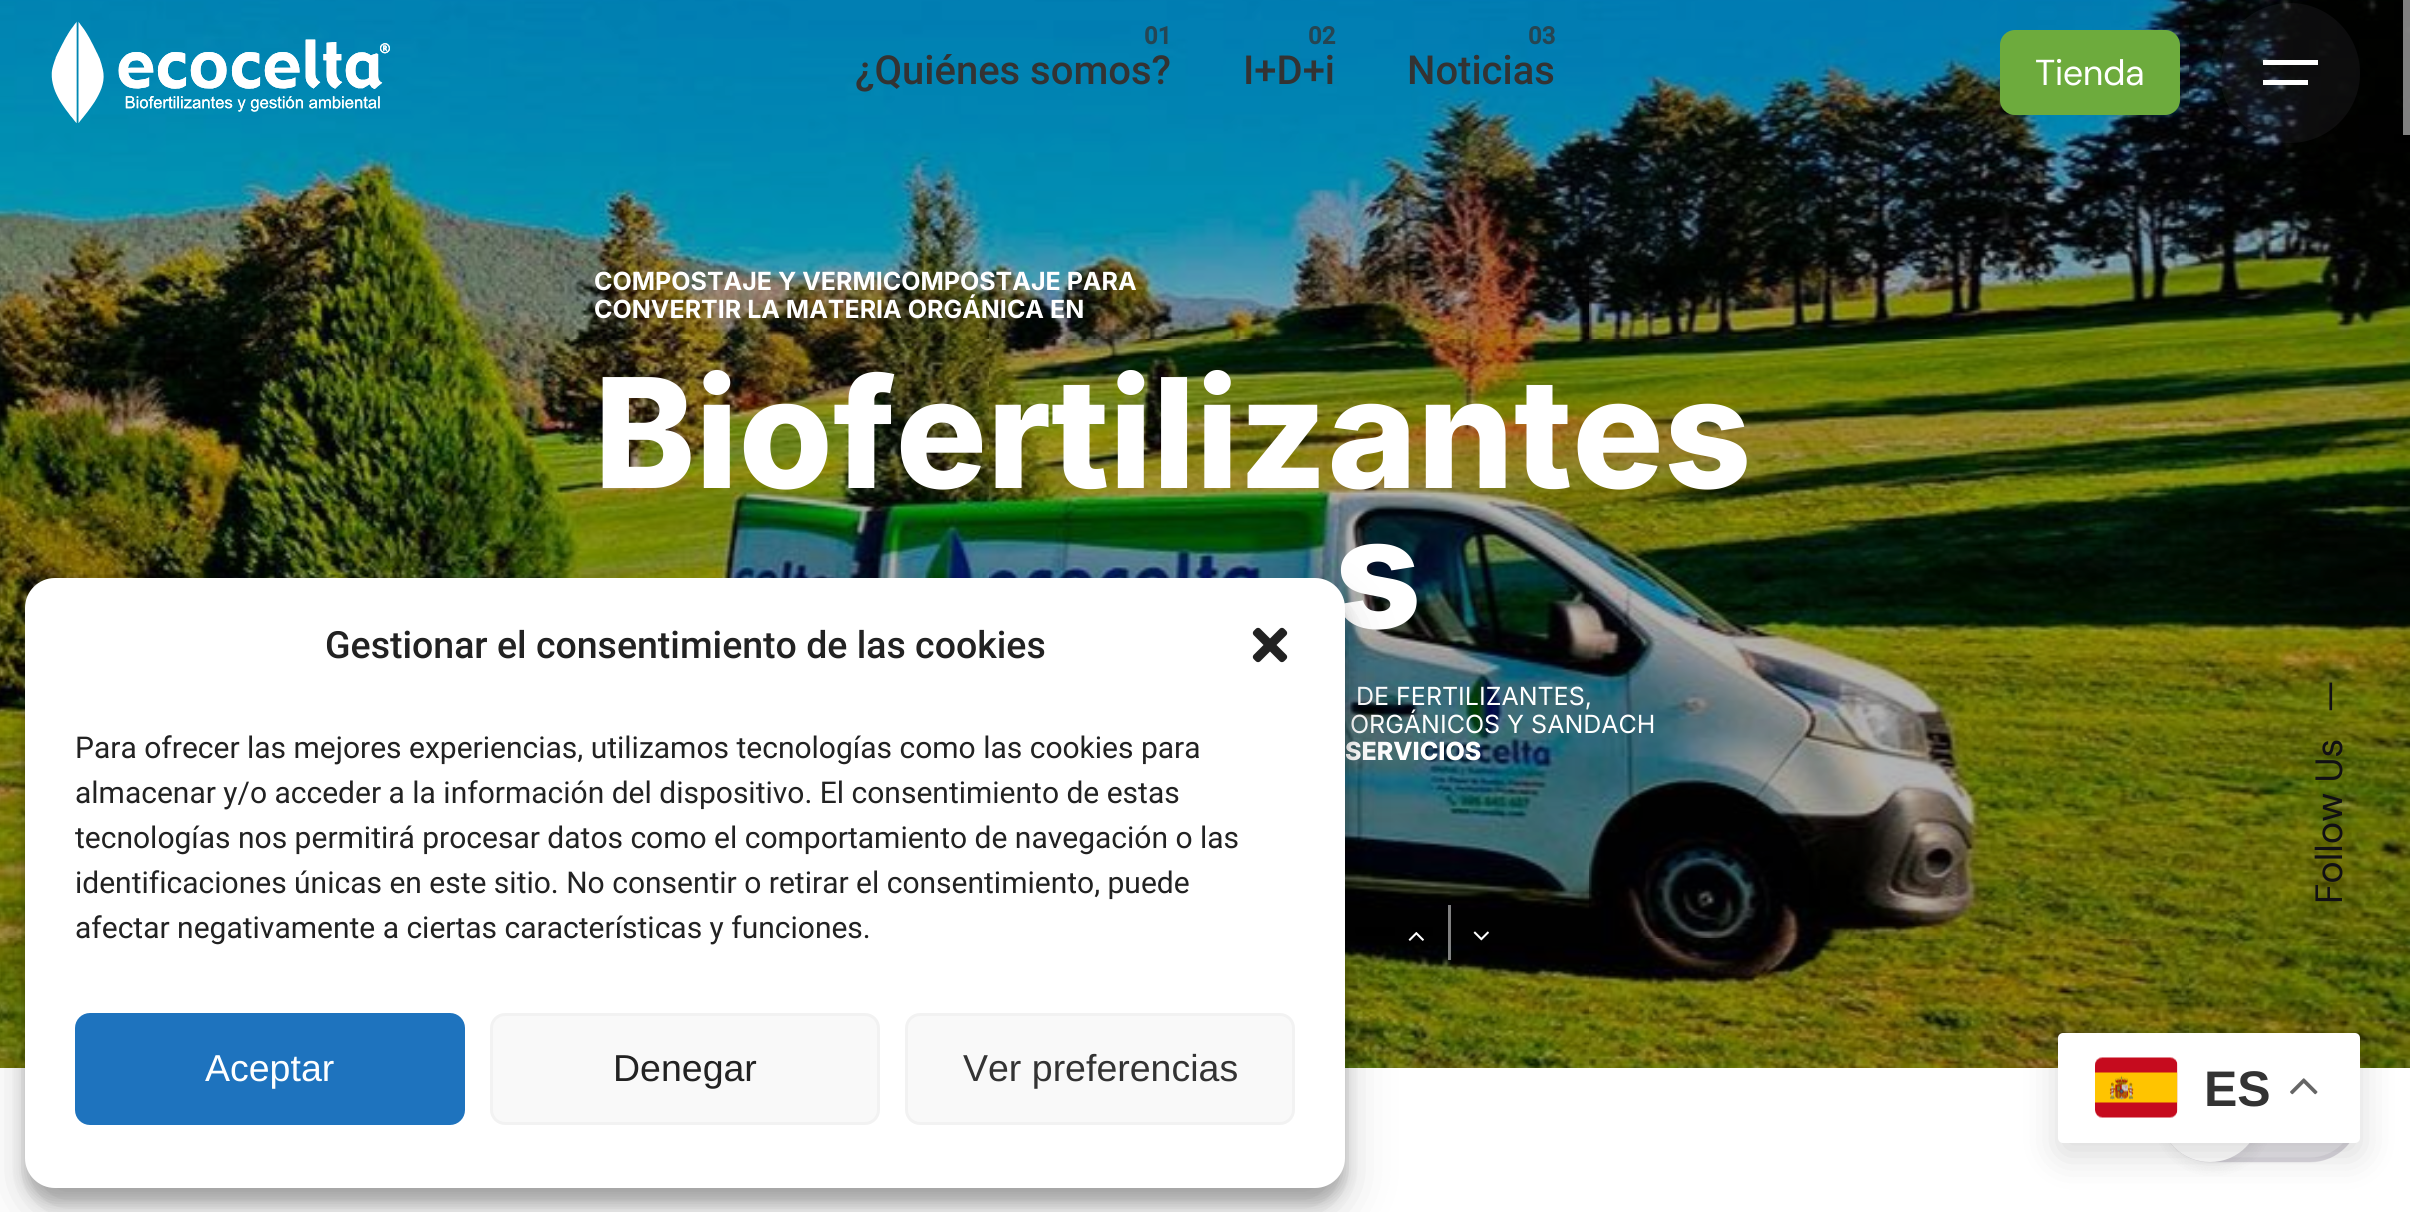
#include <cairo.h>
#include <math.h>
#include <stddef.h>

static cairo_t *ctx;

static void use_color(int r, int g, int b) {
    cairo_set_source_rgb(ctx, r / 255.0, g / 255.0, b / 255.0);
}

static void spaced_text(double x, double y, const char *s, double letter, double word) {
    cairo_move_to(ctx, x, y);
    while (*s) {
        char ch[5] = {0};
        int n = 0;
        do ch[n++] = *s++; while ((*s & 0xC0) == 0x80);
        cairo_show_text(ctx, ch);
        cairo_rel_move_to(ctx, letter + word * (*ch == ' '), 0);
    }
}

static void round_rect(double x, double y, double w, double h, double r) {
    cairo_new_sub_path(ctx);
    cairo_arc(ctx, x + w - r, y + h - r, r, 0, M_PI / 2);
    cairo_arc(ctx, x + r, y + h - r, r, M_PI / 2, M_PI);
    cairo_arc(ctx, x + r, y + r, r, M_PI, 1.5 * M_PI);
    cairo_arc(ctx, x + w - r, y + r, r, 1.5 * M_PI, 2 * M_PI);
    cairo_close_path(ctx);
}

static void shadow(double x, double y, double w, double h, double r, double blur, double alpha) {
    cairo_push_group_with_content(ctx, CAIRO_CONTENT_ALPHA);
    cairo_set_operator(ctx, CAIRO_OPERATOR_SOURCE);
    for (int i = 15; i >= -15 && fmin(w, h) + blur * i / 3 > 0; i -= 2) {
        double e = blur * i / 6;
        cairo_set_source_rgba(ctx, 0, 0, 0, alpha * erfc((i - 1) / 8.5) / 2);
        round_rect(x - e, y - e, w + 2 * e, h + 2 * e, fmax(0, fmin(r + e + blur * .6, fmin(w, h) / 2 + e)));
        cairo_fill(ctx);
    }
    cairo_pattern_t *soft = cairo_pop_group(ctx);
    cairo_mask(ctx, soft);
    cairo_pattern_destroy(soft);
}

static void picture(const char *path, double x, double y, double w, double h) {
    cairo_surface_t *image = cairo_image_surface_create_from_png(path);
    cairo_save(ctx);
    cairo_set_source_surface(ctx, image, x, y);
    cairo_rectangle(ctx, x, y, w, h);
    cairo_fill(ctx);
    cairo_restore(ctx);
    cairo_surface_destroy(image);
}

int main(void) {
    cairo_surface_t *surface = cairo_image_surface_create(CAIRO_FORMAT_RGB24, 2410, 1212);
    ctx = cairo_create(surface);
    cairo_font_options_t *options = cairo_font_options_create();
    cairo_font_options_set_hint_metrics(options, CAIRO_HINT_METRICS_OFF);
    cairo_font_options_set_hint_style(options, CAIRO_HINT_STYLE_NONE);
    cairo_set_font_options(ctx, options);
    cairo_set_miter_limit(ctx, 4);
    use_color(255, 255, 255);
    cairo_paint(ctx);
    picture("img2.png", 0, 0, 2410, 1068);
    picture("img1.png", 51, 21, 339, 102);
    cairo_select_font_face(ctx, "Roboto", CAIRO_FONT_SLANT_NORMAL, CAIRO_FONT_WEIGHT_BOLD);
    cairo_set_font_size(ctx, 24);
    use_color(38, 70, 83);
    cairo_move_to(ctx, 1144, 44);
    cairo_show_text(ctx, "01");
    cairo_select_font_face(ctx, "Roboto Medium", CAIRO_FONT_SLANT_NORMAL, CAIRO_FONT_WEIGHT_NORMAL);
    cairo_set_font_size(ctx, 40);
    use_color(51, 51, 51);
    cairo_move_to(ctx, 855, 84);
    cairo_show_text(ctx, "¿Quiénes somos?");
    cairo_select_font_face(ctx, "Roboto", CAIRO_FONT_SLANT_NORMAL, CAIRO_FONT_WEIGHT_BOLD);
    cairo_set_font_size(ctx, 24);
    use_color(38, 70, 83);
    cairo_move_to(ctx, 1308, 44);
    cairo_show_text(ctx, "02");
    cairo_select_font_face(ctx, "Roboto Medium", CAIRO_FONT_SLANT_NORMAL, CAIRO_FONT_WEIGHT_NORMAL);
    cairo_set_font_size(ctx, 40);
    use_color(51, 51, 51);
    cairo_move_to(ctx, 1243, 84);
    cairo_show_text(ctx, "I+D+i");
    cairo_select_font_face(ctx, "Roboto", CAIRO_FONT_SLANT_NORMAL, CAIRO_FONT_WEIGHT_BOLD);
    cairo_set_font_size(ctx, 24);
    use_color(38, 70, 83);
    cairo_move_to(ctx, 1528, 44);
    cairo_show_text(ctx, "03");
    cairo_select_font_face(ctx, "Roboto Medium", CAIRO_FONT_SLANT_NORMAL, CAIRO_FONT_WEIGHT_NORMAL);
    cairo_set_font_size(ctx, 40);
    use_color(51, 51, 51);
    cairo_move_to(ctx, 1407, 84);
    cairo_show_text(ctx, "Noticias");
    use_color(109, 171, 61);
    round_rect(2000, 30, 180, 85, 15);
    cairo_fill(ctx);
    cairo_select_font_face(ctx, "DM Sans", CAIRO_FONT_SLANT_NORMAL, CAIRO_FONT_WEIGHT_NORMAL);
    cairo_set_font_size(ctx, 36);
    use_color(255, 255, 255);
    spaced_text(2035, 85, "Tienda", -0.5, 0);
    cairo_set_source_rgba(ctx, 0.588, 0.565, 0.635, 0.08);
    cairo_new_path(ctx);
    cairo_arc(ctx, 2290, 73, 70, 0, 2 * M_PI);
    cairo_fill(ctx);
    use_color(255, 255, 255);
    cairo_rectangle(ctx, 2263, 60, 55, 5);
    cairo_fill(ctx);
    cairo_rectangle(ctx, 2263, 80, 45, 5);
    cairo_fill(ctx);
    cairo_set_source_rgba(ctx, 1, 1, 1, 0.5);
    cairo_rectangle(ctx, 2403, 0, 7, 135);
    cairo_fill(ctx);
    cairo_select_font_face(ctx, "Inter", CAIRO_FONT_SLANT_NORMAL, CAIRO_FONT_WEIGHT_BOLD);
    cairo_set_font_size(ctx, 25);
    use_color(255, 255, 255);
    cairo_move_to(ctx, 594, 290);
    cairo_show_text(ctx, "COMPOSTAJE Y VERMICOMPOSTAJE PARA");
    cairo_move_to(ctx, 594, 318);
    cairo_show_text(ctx, "CONVERTIR LA MATERIA ORGÁNICA EN");
    cairo_select_font_face(ctx, "Inter ExtraBold", CAIRO_FONT_SLANT_NORMAL, CAIRO_FONT_WEIGHT_NORMAL);
    cairo_set_font_size(ctx, 152.5);
    cairo_move_to(ctx, 594, 488);
    cairo_show_text(ctx, "Biofertilizantes");
    cairo_move_to(ctx, 1334, 628);
    cairo_show_text(ctx, "s");
    cairo_select_font_face(ctx, "Inter", CAIRO_FONT_SLANT_NORMAL, CAIRO_FONT_WEIGHT_NORMAL);
    cairo_set_font_size(ctx, 25);
    cairo_move_to(ctx, 1356, 705);
    cairo_show_text(ctx, "DE FERTILIZANTES,");
    cairo_move_to(ctx, 1350, 733);
    cairo_show_text(ctx, "ORGÁNICOS Y SANDACH");
    cairo_select_font_face(ctx, "Inter ExtraBold", CAIRO_FONT_SLANT_NORMAL, CAIRO_FONT_WEIGHT_NORMAL);
    cairo_move_to(ctx, 1345, 760);
    cairo_show_text(ctx, "SERVICIOS");
    picture("img3.png", 1408, 932, 16, 9);
    cairo_set_source_rgba(ctx, 1, 1, 1, 0.5);
    cairo_rectangle(ctx, 1448, 905, 3, 55);
    cairo_fill(ctx);
    picture("img4.png", 1473, 931, 16, 10);
    cairo_select_font_face(ctx, "DM Sans", CAIRO_FONT_SLANT_NORMAL, CAIRO_FONT_WEIGHT_NORMAL);
    cairo_set_font_size(ctx, 38);
    use_color(17, 16, 19);
    cairo_save(ctx);
    cairo_translate(ctx, 2342, 713);
    cairo_rotate(ctx, -90 * M_PI / 180);
    cairo_move_to(ctx, 0, 0);
    cairo_show_text(ctx, "—");
    cairo_restore(ctx);
    cairo_save(ctx);
    cairo_translate(ctx, 2342, 904);
    cairo_rotate(ctx, -90 * M_PI / 180);
    cairo_move_to(ctx, 0, 0);
    cairo_show_text(ctx, "Follow Us");
    cairo_restore(ctx);
    use_color(229, 227, 232);
    cairo_new_path(ctx);
    cairo_move_to(ctx, 2310, 1162);
    cairo_line_to(ctx, 2210, 1162);
    cairo_curve_to(ctx, 2182, 1162, 2160, 1140, 2160, 1112);
    cairo_curve_to(ctx, 2160, 1085, 2182, 1062, 2210, 1062);
    cairo_line_to(ctx, 2310, 1062);
    cairo_curve_to(ctx, 2338, 1062, 2360, 1085, 2360, 1112);
    cairo_curve_to(ctx, 2360, 1140, 2338, 1162, 2310, 1162);
    cairo_close_path(ctx);
    cairo_fill(ctx);
    cairo_new_path(ctx);
    cairo_move_to(ctx, 2310, 1160);
    cairo_line_to(ctx, 2210, 1160);
    cairo_curve_to(ctx, 2184, 1160, 2162.5, 1138.5, 2162.5, 1112.5);
    cairo_curve_to(ctx, 2162.5, 1086.5, 2184, 1065, 2210, 1065);
    cairo_line_to(ctx, 2310, 1065);
    cairo_curve_to(ctx, 2336, 1065, 2357.5, 1086.5, 2357.5, 1112.5);
    cairo_curve_to(ctx, 2357.5, 1138.5, 2336, 1160, 2310, 1160);
    cairo_close_path(ctx);
    cairo_set_source_rgba(ctx, 0.588, 0.565, 0.635, 0.15);
    cairo_set_line_width(ctx, 5);
    cairo_stroke(ctx);
    use_color(17, 16, 19);
    shadow(2163, 1065, 100, 100, 50, 7.5, 0.05);
    shadow(2163, 1065, 100, 100, 50, 7.5, 0.05);
    use_color(255, 255, 255);
    cairo_new_path(ctx);
    cairo_move_to(ctx, 2210, 1162);
    cairo_curve_to(ctx, 2182, 1162, 2160, 1140, 2160, 1112);
    cairo_curve_to(ctx, 2160, 1085, 2182, 1062, 2210, 1062);
    cairo_curve_to(ctx, 2238, 1062, 2260, 1085, 2260, 1112);
    cairo_curve_to(ctx, 2260, 1140, 2238, 1162, 2210, 1162);
    cairo_close_path(ctx);
    cairo_fill(ctx);
    use_color(0, 0, 0);
    shadow(25, 593, 1320, 610, 30, 7.5, 0.23);
    shadow(25, 603, 1320, 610, 30, 25, 0.19);
    use_color(255, 255, 255);
    round_rect(25, 578, 1320, 610, 30);
    cairo_fill(ctx);
    cairo_select_font_face(ctx, "Roboto Medium", CAIRO_FONT_SLANT_NORMAL, CAIRO_FONT_WEIGHT_NORMAL);
    cairo_set_font_size(ctx, 37.5);
    use_color(34, 34, 34);
    cairo_move_to(ctx, 325, 658);
    cairo_show_text(ctx, "Gestionar el consentimiento de las cookies");
    picture("img5.png", 1252, 627, 36, 36);
    cairo_select_font_face(ctx, "Roboto", CAIRO_FONT_SLANT_NORMAL, CAIRO_FONT_WEIGHT_NORMAL);
    cairo_set_font_size(ctx, 30);
    cairo_move_to(ctx, 75, 758);
    cairo_show_text(ctx, "Para ofrecer las mejores experiencias, utilizamos tecnologías como las cookies para");
    cairo_move_to(ctx, 75, 803);
    cairo_show_text(ctx, "almacenar y/o acceder a la información del dispositivo. El consentimiento de estas");
    cairo_move_to(ctx, 75, 848);
    cairo_show_text(ctx, "tecnologías nos permitirá procesar datos como el comportamiento de navegación o las");
    cairo_move_to(ctx, 75, 893);
    cairo_show_text(ctx, "identificaciones únicas en este sitio. No consentir o retirar el consentimiento, puede");
    cairo_move_to(ctx, 75, 938);
    cairo_show_text(ctx, "afectar negativamente a ciertas características y funciones.");
    use_color(30, 115, 190);
    round_rect(76.5, 1014.5, 387, 109, 13.5);
    cairo_fill_preserve(ctx);
    cairo_set_line_width(ctx, 3);
    cairo_stroke(ctx);
    cairo_select_font_face(ctx, "Liberation Sans", CAIRO_FONT_SLANT_NORMAL, CAIRO_FONT_WEIGHT_NORMAL);
    cairo_set_font_size(ctx, 37.5);
    use_color(255, 255, 255);
    cairo_move_to(ctx, 205, 1081);
    cairo_show_text(ctx, "Aceptar");
    use_color(249, 249, 249);
    round_rect(491.5, 1014.5, 387, 109, 13.5);
    cairo_fill_preserve(ctx);
    use_color(242, 242, 242);
    cairo_stroke(ctx);
    use_color(34, 34, 34);
    cairo_move_to(ctx, 613, 1081);
    cairo_show_text(ctx, "Denegar");
    use_color(249, 249, 249);
    round_rect(906.5, 1014.5, 387, 109, 13.5);
    cairo_fill_preserve(ctx);
    use_color(242, 242, 242);
    cairo_stroke(ctx);
    use_color(51, 51, 51);
    cairo_move_to(ctx, 963, 1081);
    cairo_show_text(ctx, "Ver preferencias");
    use_color(0, 0, 0);
    shadow(2058, 1045, 302, 110, 5, 19, 0.15);
    use_color(255, 255, 255);
    round_rect(2058, 1033, 302, 110, 5);
    cairo_fill(ctx);
    picture("img6.png", 2095, 1057, 83, 61);
    cairo_select_font_face(ctx, "Liberation Sans", CAIRO_FONT_SLANT_NORMAL, CAIRO_FONT_WEIGHT_BOLD);
    cairo_set_font_size(ctx, 50);
    use_color(51, 51, 51);
    cairo_move_to(ctx, 2204, 1106);
    cairo_show_text(ctx, "ES");
    picture("img7.png", 2290, 1078, 28, 17);
    cairo_surface_write_to_png(surface, "result.png");
    cairo_font_options_destroy(options);
    cairo_destroy(ctx);
    cairo_surface_destroy(surface);
    return 0;
}
